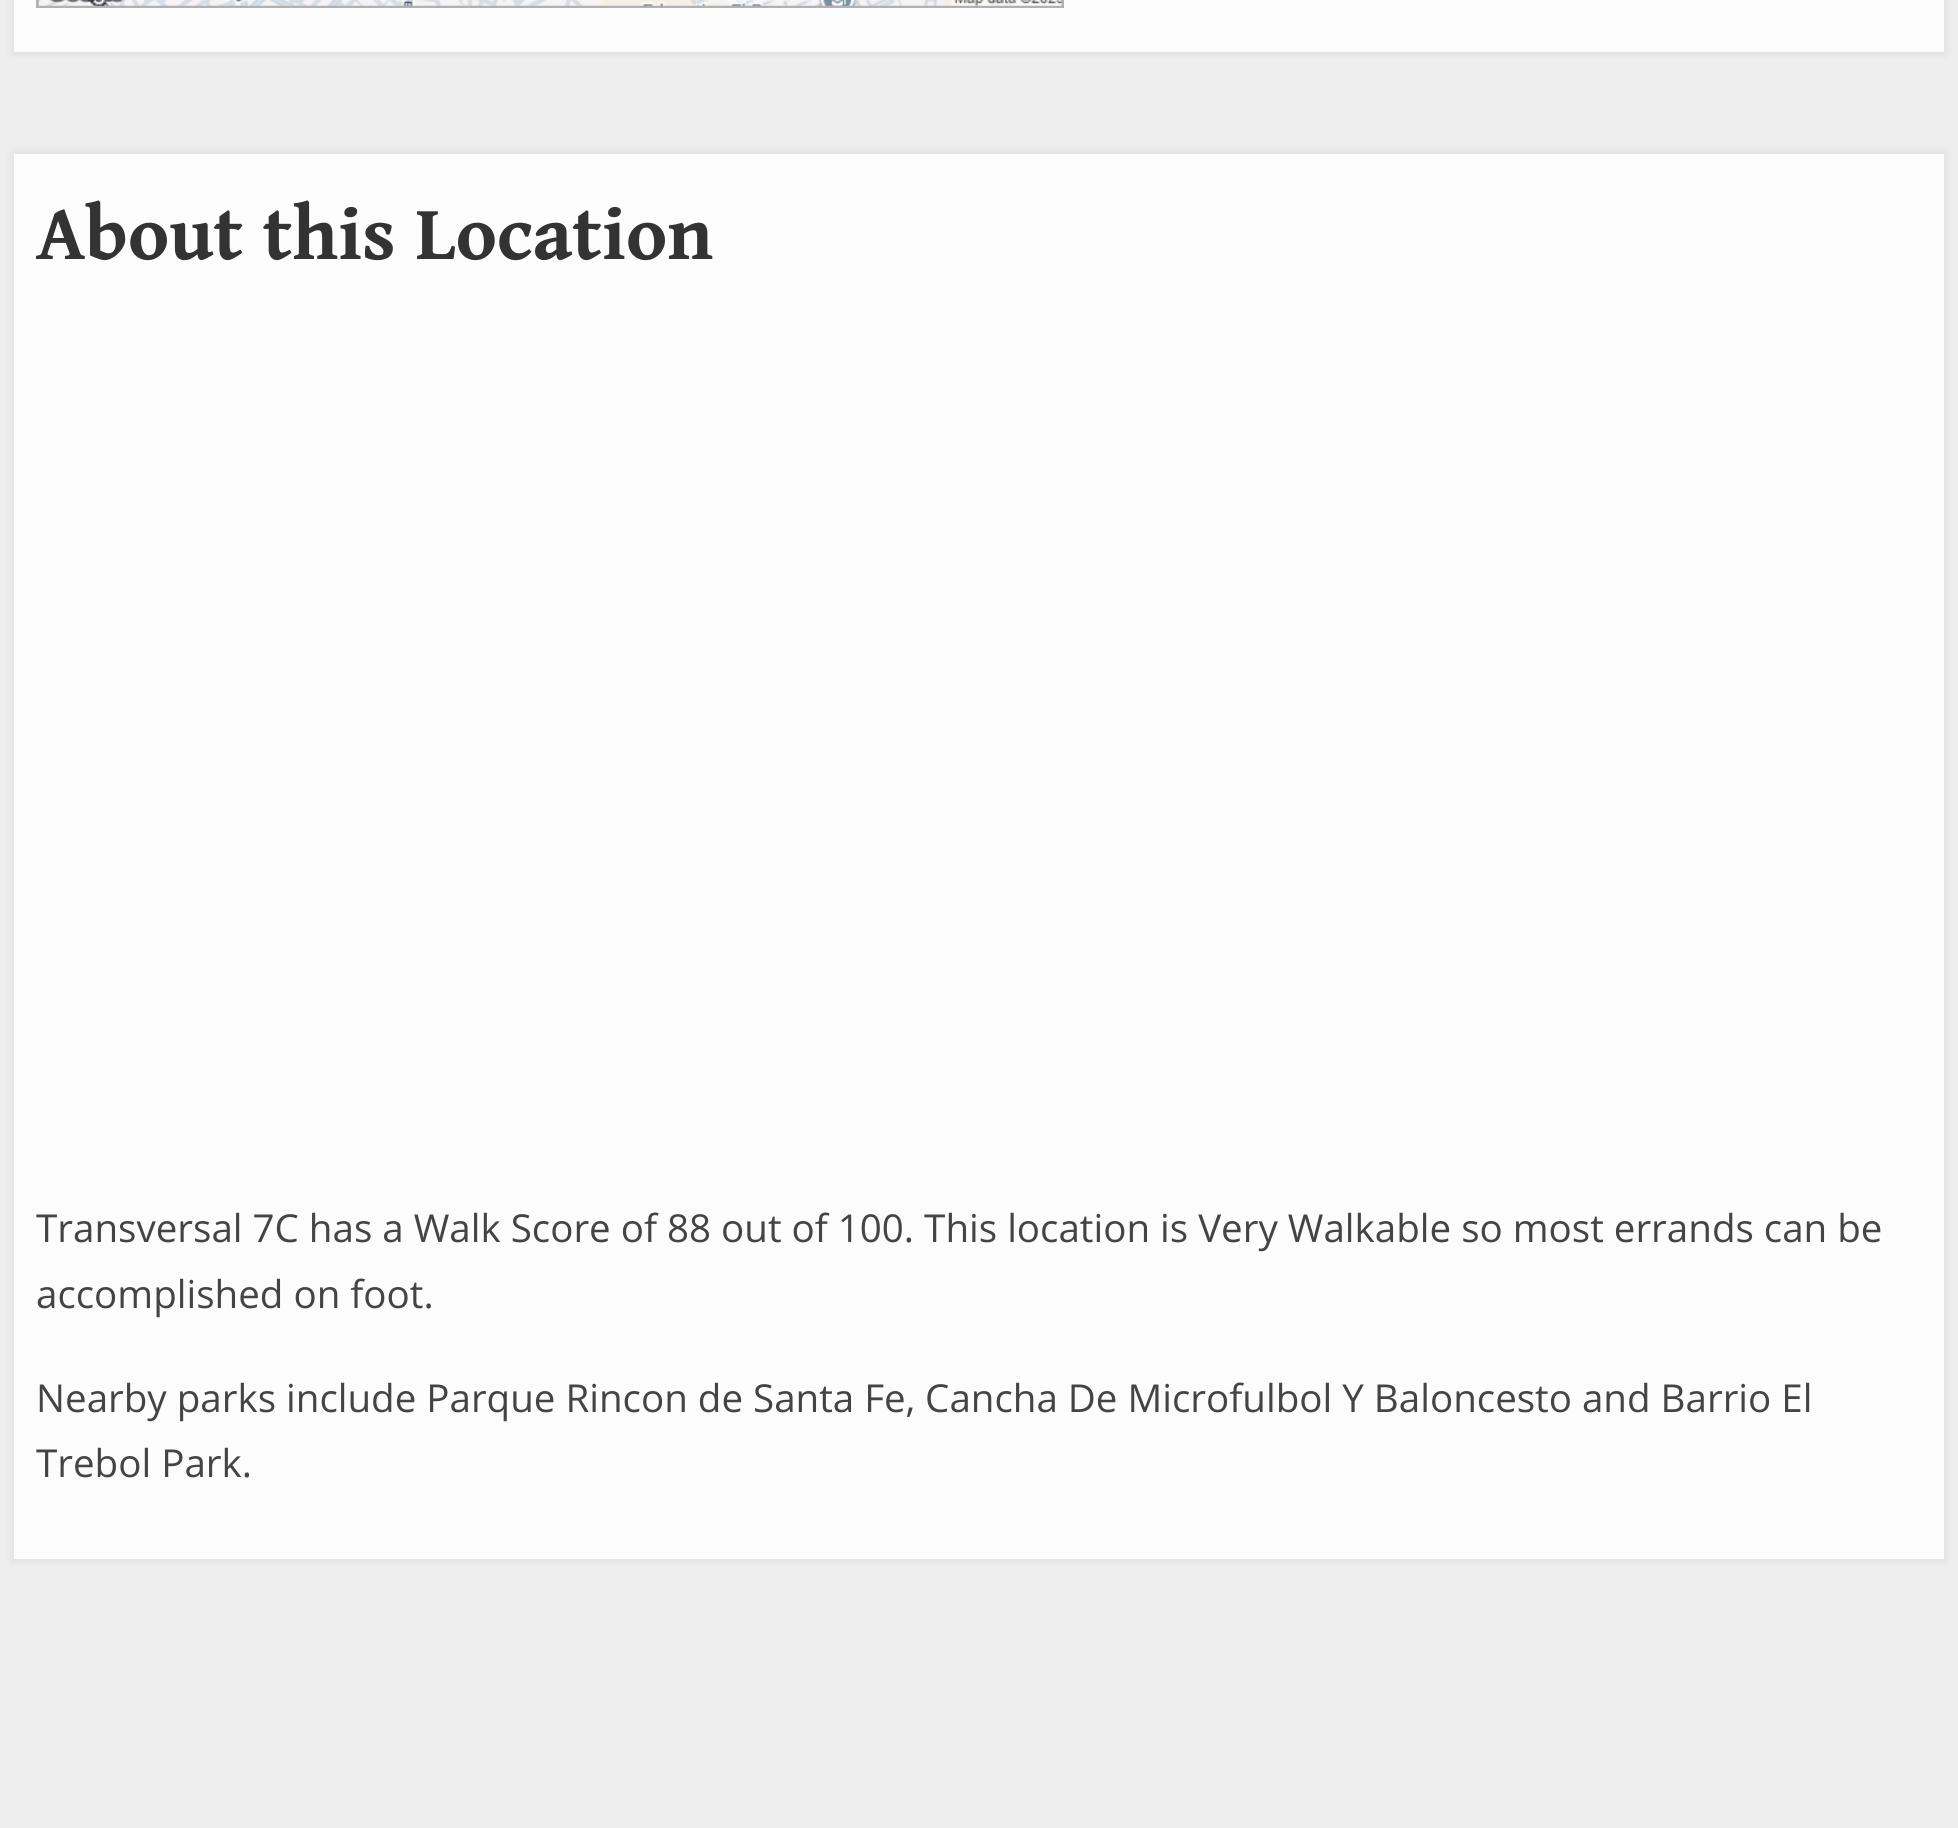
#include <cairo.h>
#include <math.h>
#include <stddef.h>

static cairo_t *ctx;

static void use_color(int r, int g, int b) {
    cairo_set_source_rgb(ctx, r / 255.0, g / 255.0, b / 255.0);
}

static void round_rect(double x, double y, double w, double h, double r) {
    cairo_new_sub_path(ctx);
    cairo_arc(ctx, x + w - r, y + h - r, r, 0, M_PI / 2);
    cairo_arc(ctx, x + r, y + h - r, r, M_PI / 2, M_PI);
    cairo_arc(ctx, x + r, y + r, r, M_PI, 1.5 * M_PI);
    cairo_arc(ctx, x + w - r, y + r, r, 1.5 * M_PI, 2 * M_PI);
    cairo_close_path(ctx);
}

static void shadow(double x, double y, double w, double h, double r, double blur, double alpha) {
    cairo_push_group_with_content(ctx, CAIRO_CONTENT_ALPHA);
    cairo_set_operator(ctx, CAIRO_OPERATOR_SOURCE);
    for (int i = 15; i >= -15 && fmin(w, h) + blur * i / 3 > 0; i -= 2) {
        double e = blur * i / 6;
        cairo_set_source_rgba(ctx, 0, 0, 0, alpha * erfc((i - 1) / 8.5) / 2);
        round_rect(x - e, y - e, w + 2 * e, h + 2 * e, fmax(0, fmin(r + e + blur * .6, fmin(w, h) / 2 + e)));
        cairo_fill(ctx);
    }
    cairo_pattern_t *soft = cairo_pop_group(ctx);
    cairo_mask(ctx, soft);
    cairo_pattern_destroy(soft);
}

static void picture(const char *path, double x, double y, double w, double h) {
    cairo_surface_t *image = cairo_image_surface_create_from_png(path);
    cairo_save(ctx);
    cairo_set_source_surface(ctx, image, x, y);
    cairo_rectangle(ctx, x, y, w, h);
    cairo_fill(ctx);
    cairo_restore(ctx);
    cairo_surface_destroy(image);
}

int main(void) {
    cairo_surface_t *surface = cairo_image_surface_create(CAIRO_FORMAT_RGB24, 1958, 1828);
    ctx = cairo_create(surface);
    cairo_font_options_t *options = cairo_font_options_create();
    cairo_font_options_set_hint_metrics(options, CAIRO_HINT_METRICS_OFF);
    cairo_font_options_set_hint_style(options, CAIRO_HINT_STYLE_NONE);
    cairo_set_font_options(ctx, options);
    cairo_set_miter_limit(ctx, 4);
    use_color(238, 238, 238);
    cairo_paint(ctx);
    use_color(226, 226, 226);
    shadow(11, -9, 1936, 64, 0, 3, 1);
    use_color(253, 252, 252);
    cairo_rectangle(ctx, 14, 0, 1930, 52);
    cairo_fill(ctx);
    cairo_rectangle(ctx, 37.5, -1.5, 1025, 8);
    use_color(177, 177, 177);
    cairo_set_line_width(ctx, 3);
    cairo_stroke(ctx);
    picture("img1.png", 38, 0, 1024, 6);
    use_color(226, 226, 226);
    shadow(11, 151, 1936, 1411, 0, 3, 1);
    use_color(253, 252, 252);
    cairo_rectangle(ctx, 14, 154, 1930, 1405);
    cairo_fill(ctx);
    cairo_select_font_face(ctx, "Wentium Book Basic", CAIRO_FONT_SLANT_NORMAL, CAIRO_FONT_WEIGHT_BOLD);
    cairo_set_font_size(ctx, 77.5);
    use_color(51, 51, 51);
    cairo_move_to(ctx, 36, 259);
    cairo_show_text(ctx, "About this Location");
    cairo_select_font_face(ctx, "Open Sans", CAIRO_FONT_SLANT_NORMAL, CAIRO_FONT_WEIGHT_NORMAL);
    cairo_set_font_size(ctx, 38.5);
    use_color(68, 68, 68);
    cairo_move_to(ctx, 36, 1242);
    cairo_show_text(ctx, "Transversal 7C has a Walk Score of 88 out of 100. This location is Very Walkable so most errands can be");
    cairo_move_to(ctx, 36, 1308);
    cairo_show_text(ctx, "accomplished on foot.");
    cairo_move_to(ctx, 36, 1412);
    cairo_show_text(ctx, "Nearby parks include Parque Rincon de Santa Fe, Cancha De Microfulbol Y Baloncesto and Barrio El");
    cairo_move_to(ctx, 36, 1477);
    cairo_show_text(ctx, "Trebol Park.");
    cairo_surface_write_to_png(surface, "result.png");
    cairo_font_options_destroy(options);
    cairo_destroy(ctx);
    cairo_surface_destroy(surface);
    return 0;
}
